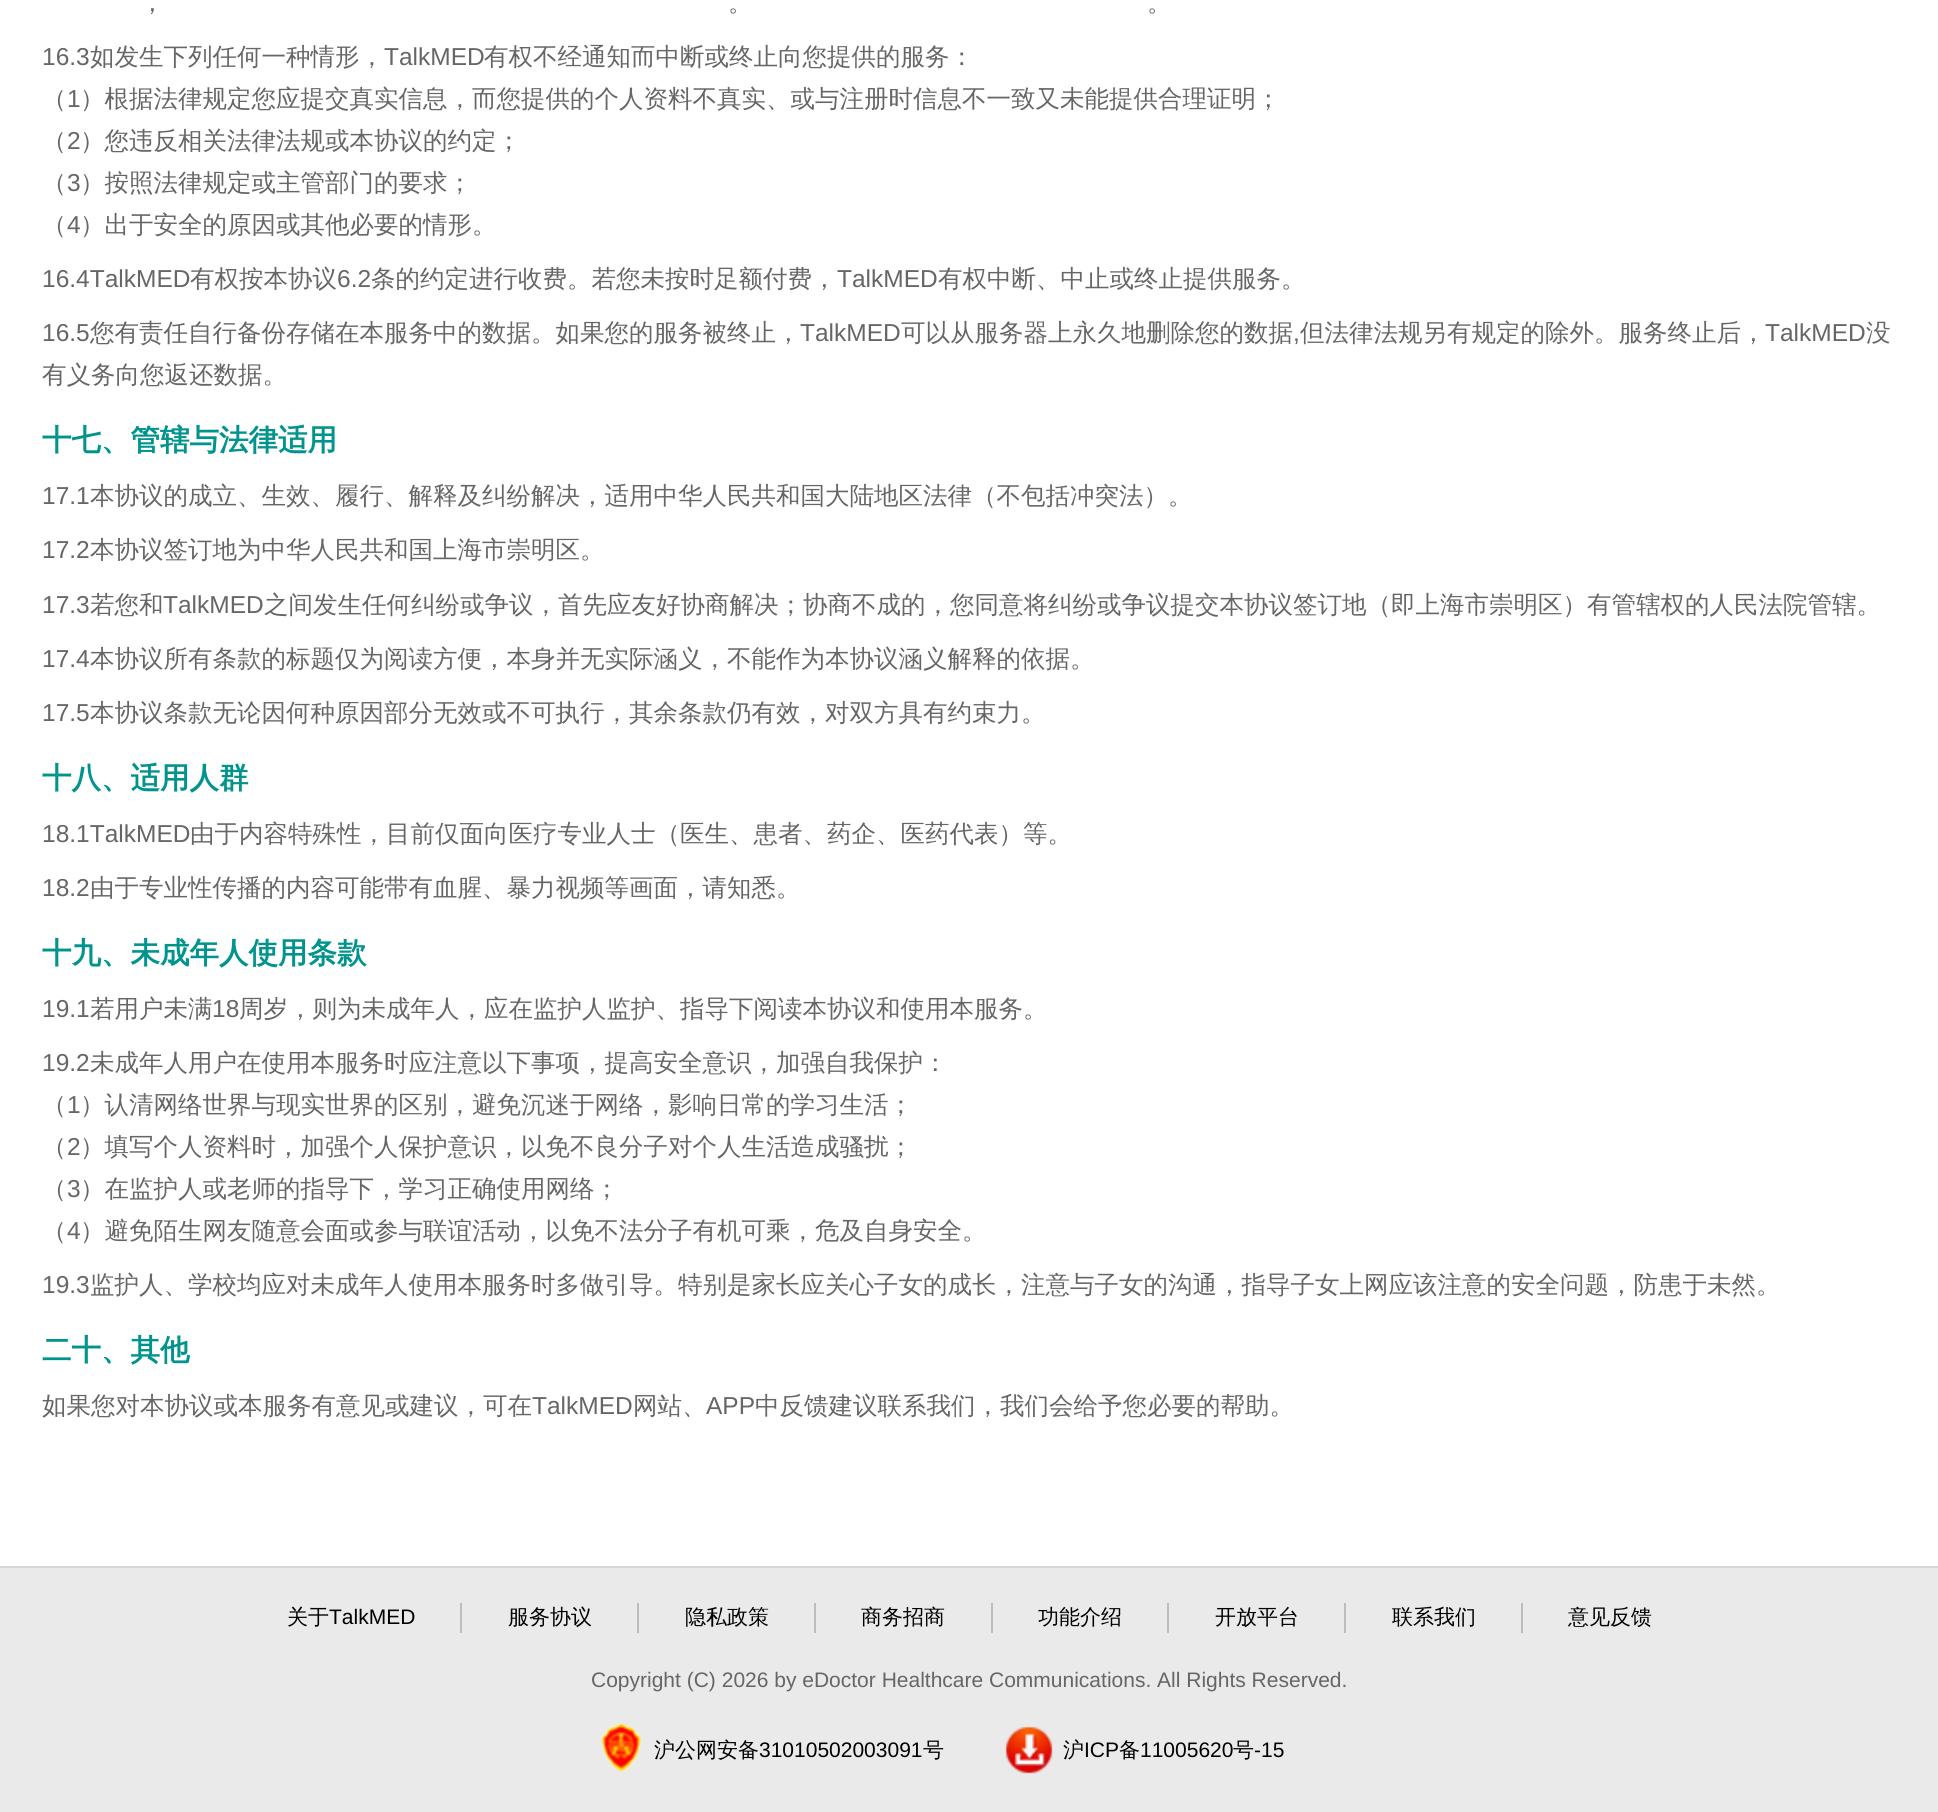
#include <cairo.h>
#include <math.h>
#include <stddef.h>

static cairo_t *ctx;

static void use_color(int r, int g, int b) {
    cairo_set_source_rgb(ctx, r / 255.0, g / 255.0, b / 255.0);
}

static void picture(const char *path, double x, double y, double w, double h) {
    cairo_surface_t *image = cairo_image_surface_create_from_png(path);
    cairo_save(ctx);
    cairo_set_source_surface(ctx, image, x, y);
    cairo_rectangle(ctx, x, y, w, h);
    cairo_fill(ctx);
    cairo_restore(ctx);
    cairo_surface_destroy(image);
}

int main(void) {
    cairo_surface_t *surface = cairo_image_surface_create(CAIRO_FORMAT_RGB24, 1938, 1812);
    ctx = cairo_create(surface);
    cairo_font_options_t *options = cairo_font_options_create();
    cairo_font_options_set_hint_metrics(options, CAIRO_HINT_METRICS_OFF);
    cairo_font_options_set_hint_style(options, CAIRO_HINT_STYLE_NONE);
    cairo_set_font_options(ctx, options);
    cairo_set_miter_limit(ctx, 4);
    use_color(255, 255, 255);
    cairo_paint(ctx);
    cairo_select_font_face(ctx, "WenQuanYi Zen Hei Medium", CAIRO_FONT_SLANT_NORMAL, CAIRO_FONT_WEIGHT_NORMAL);
    cairo_set_font_size(ctx, 24.5);
    use_color(102, 102, 102);
    cairo_move_to(ctx, 140, 11);
    cairo_show_text(ctx, "，");
    cairo_move_to(ctx, 728, 11);
    cairo_show_text(ctx, "。");
    cairo_move_to(ctx, 1147, 11);
    cairo_show_text(ctx, "。");
    cairo_select_font_face(ctx, "Liberation Sans", CAIRO_FONT_SLANT_NORMAL, CAIRO_FONT_WEIGHT_NORMAL);
    cairo_move_to(ctx, 42, 65);
    cairo_show_text(ctx, "16.3");
    cairo_select_font_face(ctx, "WenQuanYi Zen Hei Medium", CAIRO_FONT_SLANT_NORMAL, CAIRO_FONT_WEIGHT_NORMAL);
    cairo_move_to(ctx, 90, 65);
    cairo_show_text(ctx, "如发生下列任何一种情形，");
    cairo_select_font_face(ctx, "Liberation Sans", CAIRO_FONT_SLANT_NORMAL, CAIRO_FONT_WEIGHT_NORMAL);
    cairo_move_to(ctx, 384, 65);
    cairo_show_text(ctx, "TalkMED");
    cairo_select_font_face(ctx, "WenQuanYi Zen Hei Medium", CAIRO_FONT_SLANT_NORMAL, CAIRO_FONT_WEIGHT_NORMAL);
    cairo_move_to(ctx, 484, 65);
    cairo_show_text(ctx, "有权不经通知而中断或终止向您提供的服务：");
    cairo_move_to(ctx, 42, 107);
    cairo_show_text(ctx, "（");
    cairo_select_font_face(ctx, "Liberation Sans", CAIRO_FONT_SLANT_NORMAL, CAIRO_FONT_WEIGHT_NORMAL);
    cairo_move_to(ctx, 67, 107);
    cairo_show_text(ctx, "1");
    cairo_select_font_face(ctx, "WenQuanYi Zen Hei Medium", CAIRO_FONT_SLANT_NORMAL, CAIRO_FONT_WEIGHT_NORMAL);
    cairo_move_to(ctx, 80, 107);
    cairo_show_text(ctx, "）根据法律规定您应提交真实信息，而您提供的个人资料不真实、或与注册时信息不一致又未能提供合理证明；");
    cairo_move_to(ctx, 42, 149);
    cairo_show_text(ctx, "（");
    cairo_select_font_face(ctx, "Liberation Sans", CAIRO_FONT_SLANT_NORMAL, CAIRO_FONT_WEIGHT_NORMAL);
    cairo_move_to(ctx, 67, 149);
    cairo_show_text(ctx, "2");
    cairo_select_font_face(ctx, "WenQuanYi Zen Hei Medium", CAIRO_FONT_SLANT_NORMAL, CAIRO_FONT_WEIGHT_NORMAL);
    cairo_move_to(ctx, 80, 149);
    cairo_show_text(ctx, "）您违反相关法律法规或本协议的约定；");
    cairo_move_to(ctx, 42, 191);
    cairo_show_text(ctx, "（");
    cairo_select_font_face(ctx, "Liberation Sans", CAIRO_FONT_SLANT_NORMAL, CAIRO_FONT_WEIGHT_NORMAL);
    cairo_move_to(ctx, 67, 191);
    cairo_show_text(ctx, "3");
    cairo_select_font_face(ctx, "WenQuanYi Zen Hei Medium", CAIRO_FONT_SLANT_NORMAL, CAIRO_FONT_WEIGHT_NORMAL);
    cairo_move_to(ctx, 80, 191);
    cairo_show_text(ctx, "）按照法律规定或主管部门的要求；");
    cairo_move_to(ctx, 42, 233);
    cairo_show_text(ctx, "（");
    cairo_select_font_face(ctx, "Liberation Sans", CAIRO_FONT_SLANT_NORMAL, CAIRO_FONT_WEIGHT_NORMAL);
    cairo_move_to(ctx, 67, 233);
    cairo_show_text(ctx, "4");
    cairo_select_font_face(ctx, "WenQuanYi Zen Hei Medium", CAIRO_FONT_SLANT_NORMAL, CAIRO_FONT_WEIGHT_NORMAL);
    cairo_move_to(ctx, 80, 233);
    cairo_show_text(ctx, "）出于安全的原因或其他必要的情形。");
    cairo_select_font_face(ctx, "Liberation Sans", CAIRO_FONT_SLANT_NORMAL, CAIRO_FONT_WEIGHT_NORMAL);
    cairo_move_to(ctx, 42, 287);
    cairo_show_text(ctx, "16.4TalkMED");
    cairo_select_font_face(ctx, "WenQuanYi Zen Hei Medium", CAIRO_FONT_SLANT_NORMAL, CAIRO_FONT_WEIGHT_NORMAL);
    cairo_move_to(ctx, 190, 287);
    cairo_show_text(ctx, "有权按本协议");
    cairo_select_font_face(ctx, "Liberation Sans", CAIRO_FONT_SLANT_NORMAL, CAIRO_FONT_WEIGHT_NORMAL);
    cairo_move_to(ctx, 337, 287);
    cairo_show_text(ctx, "6.2");
    cairo_select_font_face(ctx, "WenQuanYi Zen Hei Medium", CAIRO_FONT_SLANT_NORMAL, CAIRO_FONT_WEIGHT_NORMAL);
    cairo_move_to(ctx, 371, 287);
    cairo_show_text(ctx, "条的约定进行收费。若您未按时足额付费，");
    cairo_select_font_face(ctx, "Liberation Sans", CAIRO_FONT_SLANT_NORMAL, CAIRO_FONT_WEIGHT_NORMAL);
    cairo_move_to(ctx, 837, 287);
    cairo_show_text(ctx, "TalkMED");
    cairo_select_font_face(ctx, "WenQuanYi Zen Hei Medium", CAIRO_FONT_SLANT_NORMAL, CAIRO_FONT_WEIGHT_NORMAL);
    cairo_move_to(ctx, 938, 287);
    cairo_show_text(ctx, "有权中断、中止或终止提供服务。");
    cairo_select_font_face(ctx, "Liberation Sans", CAIRO_FONT_SLANT_NORMAL, CAIRO_FONT_WEIGHT_NORMAL);
    cairo_move_to(ctx, 42, 341);
    cairo_show_text(ctx, "16.5");
    cairo_select_font_face(ctx, "WenQuanYi Zen Hei Medium", CAIRO_FONT_SLANT_NORMAL, CAIRO_FONT_WEIGHT_NORMAL);
    cairo_move_to(ctx, 90, 341);
    cairo_show_text(ctx, "您有责任自行备份存储在本服务中的数据。如果您的服务被终止，");
    cairo_select_font_face(ctx, "Liberation Sans", CAIRO_FONT_SLANT_NORMAL, CAIRO_FONT_WEIGHT_NORMAL);
    cairo_move_to(ctx, 800, 341);
    cairo_show_text(ctx, "TalkMED");
    cairo_select_font_face(ctx, "WenQuanYi Zen Hei Medium", CAIRO_FONT_SLANT_NORMAL, CAIRO_FONT_WEIGHT_NORMAL);
    cairo_move_to(ctx, 901, 341);
    cairo_show_text(ctx, "可以从服务器上永久地删除您的数据");
    cairo_select_font_face(ctx, "Liberation Sans", CAIRO_FONT_SLANT_NORMAL, CAIRO_FONT_WEIGHT_NORMAL);
    cairo_move_to(ctx, 1293, 341);
    cairo_show_text(ctx, ",");
    cairo_select_font_face(ctx, "WenQuanYi Zen Hei Medium", CAIRO_FONT_SLANT_NORMAL, CAIRO_FONT_WEIGHT_NORMAL);
    cairo_move_to(ctx, 1300, 341);
    cairo_show_text(ctx, "但法律法规另有规定的除外。服务终止后，");
    cairo_select_font_face(ctx, "Liberation Sans", CAIRO_FONT_SLANT_NORMAL, CAIRO_FONT_WEIGHT_NORMAL);
    cairo_move_to(ctx, 1765, 341);
    cairo_show_text(ctx, "TalkMED");
    cairo_select_font_face(ctx, "WenQuanYi Zen Hei Medium", CAIRO_FONT_SLANT_NORMAL, CAIRO_FONT_WEIGHT_NORMAL);
    cairo_move_to(ctx, 1866, 341);
    cairo_show_text(ctx, "没");
    cairo_move_to(ctx, 42, 383);
    cairo_show_text(ctx, "有义务向您返还数据。");
    cairo_select_font_face(ctx, "WenQuanYi Zen Hei", CAIRO_FONT_SLANT_NORMAL, CAIRO_FONT_WEIGHT_BOLD);
    cairo_set_font_size(ctx, 29.5);
    use_color(0, 148, 140);
    cairo_move_to(ctx, 42, 450);
    cairo_show_text(ctx, "十七、管辖与法律适用");
    cairo_select_font_face(ctx, "Liberation Sans", CAIRO_FONT_SLANT_NORMAL, CAIRO_FONT_WEIGHT_NORMAL);
    cairo_set_font_size(ctx, 24.5);
    use_color(102, 102, 102);
    cairo_move_to(ctx, 42, 504);
    cairo_show_text(ctx, "17.1");
    cairo_select_font_face(ctx, "WenQuanYi Zen Hei Medium", CAIRO_FONT_SLANT_NORMAL, CAIRO_FONT_WEIGHT_NORMAL);
    cairo_move_to(ctx, 90, 504);
    cairo_show_text(ctx, "本协议的成立、生效、履行、解释及纠纷解决，适用中华人民共和国大陆地区法律（不包括冲突法）。");
    cairo_select_font_face(ctx, "Liberation Sans", CAIRO_FONT_SLANT_NORMAL, CAIRO_FONT_WEIGHT_NORMAL);
    cairo_move_to(ctx, 42, 558);
    cairo_show_text(ctx, "17.2");
    cairo_select_font_face(ctx, "WenQuanYi Zen Hei Medium", CAIRO_FONT_SLANT_NORMAL, CAIRO_FONT_WEIGHT_NORMAL);
    cairo_move_to(ctx, 90, 558);
    cairo_show_text(ctx, "本协议签订地为中华人民共和国上海市崇明区。");
    cairo_select_font_face(ctx, "Liberation Sans", CAIRO_FONT_SLANT_NORMAL, CAIRO_FONT_WEIGHT_NORMAL);
    cairo_move_to(ctx, 42, 613);
    cairo_show_text(ctx, "17.3");
    cairo_select_font_face(ctx, "WenQuanYi Zen Hei Medium", CAIRO_FONT_SLANT_NORMAL, CAIRO_FONT_WEIGHT_NORMAL);
    cairo_move_to(ctx, 90, 613);
    cairo_show_text(ctx, "若您和");
    cairo_select_font_face(ctx, "Liberation Sans", CAIRO_FONT_SLANT_NORMAL, CAIRO_FONT_WEIGHT_NORMAL);
    cairo_move_to(ctx, 163, 613);
    cairo_show_text(ctx, "TalkMED");
    cairo_select_font_face(ctx, "WenQuanYi Zen Hei Medium", CAIRO_FONT_SLANT_NORMAL, CAIRO_FONT_WEIGHT_NORMAL);
    cairo_move_to(ctx, 264, 613);
    cairo_show_text(ctx, "之间发生任何纠纷或争议，首先应友好协商解决；协商不成的，您同意将纠纷或争议提交本协议签订地（即上海市崇明区）有管辖权的人民法院管辖。");
    cairo_select_font_face(ctx, "Liberation Sans", CAIRO_FONT_SLANT_NORMAL, CAIRO_FONT_WEIGHT_NORMAL);
    cairo_move_to(ctx, 42, 667);
    cairo_show_text(ctx, "17.4");
    cairo_select_font_face(ctx, "WenQuanYi Zen Hei Medium", CAIRO_FONT_SLANT_NORMAL, CAIRO_FONT_WEIGHT_NORMAL);
    cairo_move_to(ctx, 90, 667);
    cairo_show_text(ctx, "本协议所有条款的标题仅为阅读方便，本身并无实际涵义，不能作为本协议涵义解释的依据。");
    cairo_select_font_face(ctx, "Liberation Sans", CAIRO_FONT_SLANT_NORMAL, CAIRO_FONT_WEIGHT_NORMAL);
    cairo_move_to(ctx, 42, 721);
    cairo_show_text(ctx, "17.5");
    cairo_select_font_face(ctx, "WenQuanYi Zen Hei Medium", CAIRO_FONT_SLANT_NORMAL, CAIRO_FONT_WEIGHT_NORMAL);
    cairo_move_to(ctx, 90, 721);
    cairo_show_text(ctx, "本协议条款无论因何种原因部分无效或不可执行，其余条款仍有效，对双方具有约束力。");
    cairo_select_font_face(ctx, "WenQuanYi Zen Hei", CAIRO_FONT_SLANT_NORMAL, CAIRO_FONT_WEIGHT_BOLD);
    cairo_set_font_size(ctx, 29.5);
    use_color(0, 148, 140);
    cairo_move_to(ctx, 42, 788);
    cairo_show_text(ctx, "十八、适用人群");
    cairo_select_font_face(ctx, "Liberation Sans", CAIRO_FONT_SLANT_NORMAL, CAIRO_FONT_WEIGHT_NORMAL);
    cairo_set_font_size(ctx, 24.5);
    use_color(102, 102, 102);
    cairo_move_to(ctx, 42, 842);
    cairo_show_text(ctx, "18.1TalkMED");
    cairo_select_font_face(ctx, "WenQuanYi Zen Hei Medium", CAIRO_FONT_SLANT_NORMAL, CAIRO_FONT_WEIGHT_NORMAL);
    cairo_move_to(ctx, 190, 842);
    cairo_show_text(ctx, "由于内容特殊性，目前仅面向医疗专业人士（医生、患者、药企、医药代表）等。");
    cairo_select_font_face(ctx, "Liberation Sans", CAIRO_FONT_SLANT_NORMAL, CAIRO_FONT_WEIGHT_NORMAL);
    cairo_move_to(ctx, 42, 896);
    cairo_show_text(ctx, "18.2");
    cairo_select_font_face(ctx, "WenQuanYi Zen Hei Medium", CAIRO_FONT_SLANT_NORMAL, CAIRO_FONT_WEIGHT_NORMAL);
    cairo_move_to(ctx, 90, 896);
    cairo_show_text(ctx, "由于专业性传播的内容可能带有血腥、暴力视频等画面，请知悉。");
    cairo_select_font_face(ctx, "WenQuanYi Zen Hei", CAIRO_FONT_SLANT_NORMAL, CAIRO_FONT_WEIGHT_BOLD);
    cairo_set_font_size(ctx, 29.5);
    use_color(0, 148, 140);
    cairo_move_to(ctx, 42, 963);
    cairo_show_text(ctx, "十九、未成年人使用条款");
    cairo_select_font_face(ctx, "Liberation Sans", CAIRO_FONT_SLANT_NORMAL, CAIRO_FONT_WEIGHT_NORMAL);
    cairo_set_font_size(ctx, 24.5);
    use_color(102, 102, 102);
    cairo_move_to(ctx, 42, 1017);
    cairo_show_text(ctx, "19.1");
    cairo_select_font_face(ctx, "WenQuanYi Zen Hei Medium", CAIRO_FONT_SLANT_NORMAL, CAIRO_FONT_WEIGHT_NORMAL);
    cairo_move_to(ctx, 90, 1017);
    cairo_show_text(ctx, "若用户未满");
    cairo_select_font_face(ctx, "Liberation Sans", CAIRO_FONT_SLANT_NORMAL, CAIRO_FONT_WEIGHT_NORMAL);
    cairo_move_to(ctx, 212, 1017);
    cairo_show_text(ctx, "18");
    cairo_select_font_face(ctx, "WenQuanYi Zen Hei Medium", CAIRO_FONT_SLANT_NORMAL, CAIRO_FONT_WEIGHT_NORMAL);
    cairo_move_to(ctx, 239, 1017);
    cairo_show_text(ctx, "周岁，则为未成年人，应在监护人监护、指导下阅读本协议和使用本服务。");
    cairo_select_font_face(ctx, "Liberation Sans", CAIRO_FONT_SLANT_NORMAL, CAIRO_FONT_WEIGHT_NORMAL);
    cairo_move_to(ctx, 42, 1071);
    cairo_show_text(ctx, "19.2");
    cairo_select_font_face(ctx, "WenQuanYi Zen Hei Medium", CAIRO_FONT_SLANT_NORMAL, CAIRO_FONT_WEIGHT_NORMAL);
    cairo_move_to(ctx, 90, 1071);
    cairo_show_text(ctx, "未成年人用户在使用本服务时应注意以下事项，提高安全意识，加强自我保护：");
    cairo_move_to(ctx, 42, 1113);
    cairo_show_text(ctx, "（");
    cairo_select_font_face(ctx, "Liberation Sans", CAIRO_FONT_SLANT_NORMAL, CAIRO_FONT_WEIGHT_NORMAL);
    cairo_move_to(ctx, 67, 1113);
    cairo_show_text(ctx, "1");
    cairo_select_font_face(ctx, "WenQuanYi Zen Hei Medium", CAIRO_FONT_SLANT_NORMAL, CAIRO_FONT_WEIGHT_NORMAL);
    cairo_move_to(ctx, 80, 1113);
    cairo_show_text(ctx, "）认清网络世界与现实世界的区别，避免沉迷于网络，影响日常的学习生活；");
    cairo_move_to(ctx, 42, 1155);
    cairo_show_text(ctx, "（");
    cairo_select_font_face(ctx, "Liberation Sans", CAIRO_FONT_SLANT_NORMAL, CAIRO_FONT_WEIGHT_NORMAL);
    cairo_move_to(ctx, 67, 1155);
    cairo_show_text(ctx, "2");
    cairo_select_font_face(ctx, "WenQuanYi Zen Hei Medium", CAIRO_FONT_SLANT_NORMAL, CAIRO_FONT_WEIGHT_NORMAL);
    cairo_move_to(ctx, 80, 1155);
    cairo_show_text(ctx, "）填写个人资料时，加强个人保护意识，以免不良分子对个人生活造成骚扰；");
    cairo_move_to(ctx, 42, 1197);
    cairo_show_text(ctx, "（");
    cairo_select_font_face(ctx, "Liberation Sans", CAIRO_FONT_SLANT_NORMAL, CAIRO_FONT_WEIGHT_NORMAL);
    cairo_move_to(ctx, 67, 1197);
    cairo_show_text(ctx, "3");
    cairo_select_font_face(ctx, "WenQuanYi Zen Hei Medium", CAIRO_FONT_SLANT_NORMAL, CAIRO_FONT_WEIGHT_NORMAL);
    cairo_move_to(ctx, 80, 1197);
    cairo_show_text(ctx, "）在监护人或老师的指导下，学习正确使用网络；");
    cairo_move_to(ctx, 42, 1239);
    cairo_show_text(ctx, "（");
    cairo_select_font_face(ctx, "Liberation Sans", CAIRO_FONT_SLANT_NORMAL, CAIRO_FONT_WEIGHT_NORMAL);
    cairo_move_to(ctx, 67, 1239);
    cairo_show_text(ctx, "4");
    cairo_select_font_face(ctx, "WenQuanYi Zen Hei Medium", CAIRO_FONT_SLANT_NORMAL, CAIRO_FONT_WEIGHT_NORMAL);
    cairo_move_to(ctx, 80, 1239);
    cairo_show_text(ctx, "）避免陌生网友随意会面或参与联谊活动，以免不法分子有机可乘，危及自身安全。");
    cairo_select_font_face(ctx, "Liberation Sans", CAIRO_FONT_SLANT_NORMAL, CAIRO_FONT_WEIGHT_NORMAL);
    cairo_move_to(ctx, 42, 1293);
    cairo_show_text(ctx, "19.3");
    cairo_select_font_face(ctx, "WenQuanYi Zen Hei Medium", CAIRO_FONT_SLANT_NORMAL, CAIRO_FONT_WEIGHT_NORMAL);
    cairo_move_to(ctx, 90, 1293);
    cairo_show_text(ctx, "监护人、学校均应对未成年人使用本服务时多做引导。特别是家长应关心子女的成长，注意与子女的沟通，指导子女上网应该注意的安全问题，防患于未然。");
    cairo_select_font_face(ctx, "WenQuanYi Zen Hei", CAIRO_FONT_SLANT_NORMAL, CAIRO_FONT_WEIGHT_BOLD);
    cairo_set_font_size(ctx, 29.5);
    use_color(0, 148, 140);
    cairo_move_to(ctx, 42, 1360);
    cairo_show_text(ctx, "二十、其他");
    cairo_select_font_face(ctx, "WenQuanYi Zen Hei Medium", CAIRO_FONT_SLANT_NORMAL, CAIRO_FONT_WEIGHT_NORMAL);
    cairo_set_font_size(ctx, 24.5);
    use_color(102, 102, 102);
    cairo_move_to(ctx, 42, 1414);
    cairo_show_text(ctx, "如果您对本协议或本服务有意见或建议，可在");
    cairo_select_font_face(ctx, "Liberation Sans", CAIRO_FONT_SLANT_NORMAL, CAIRO_FONT_WEIGHT_NORMAL);
    cairo_move_to(ctx, 532, 1414);
    cairo_show_text(ctx, "TalkMED");
    cairo_select_font_face(ctx, "WenQuanYi Zen Hei Medium", CAIRO_FONT_SLANT_NORMAL, CAIRO_FONT_WEIGHT_NORMAL);
    cairo_move_to(ctx, 633, 1414);
    cairo_show_text(ctx, "网站、");
    cairo_select_font_face(ctx, "Liberation Sans", CAIRO_FONT_SLANT_NORMAL, CAIRO_FONT_WEIGHT_NORMAL);
    cairo_move_to(ctx, 706, 1414);
    cairo_show_text(ctx, "APP");
    cairo_select_font_face(ctx, "WenQuanYi Zen Hei Medium", CAIRO_FONT_SLANT_NORMAL, CAIRO_FONT_WEIGHT_NORMAL);
    cairo_move_to(ctx, 755, 1414);
    cairo_show_text(ctx, "中反馈建议联系我们，我们会给予您必要的帮助。");
    use_color(234, 234, 234);
    cairo_rectangle(ctx, 0, 1568, 1938, 244);
    cairo_fill(ctx);
    use_color(215, 215, 215);
    cairo_rectangle(ctx, 0, 1566, 1938, 2);
    cairo_fill(ctx);
    cairo_set_font_size(ctx, 21);
    use_color(0, 0, 0);
    cairo_move_to(ctx, 287, 1624);
    cairo_show_text(ctx, "关于");
    cairo_select_font_face(ctx, "Liberation Sans", CAIRO_FONT_SLANT_NORMAL, CAIRO_FONT_WEIGHT_NORMAL);
    cairo_move_to(ctx, 329, 1624);
    cairo_show_text(ctx, "TalkMED");
    use_color(189, 189, 189);
    cairo_rectangle(ctx, 460, 1603, 2, 30);
    cairo_fill(ctx);
    cairo_select_font_face(ctx, "WenQuanYi Zen Hei Medium", CAIRO_FONT_SLANT_NORMAL, CAIRO_FONT_WEIGHT_NORMAL);
    use_color(0, 0, 0);
    cairo_move_to(ctx, 508, 1624);
    cairo_show_text(ctx, "服务协议");
    use_color(189, 189, 189);
    cairo_rectangle(ctx, 637, 1603, 2, 30);
    cairo_fill(ctx);
    use_color(0, 0, 0);
    cairo_move_to(ctx, 685, 1624);
    cairo_show_text(ctx, "隐私政策");
    use_color(189, 189, 189);
    cairo_rectangle(ctx, 814, 1603, 2, 30);
    cairo_fill(ctx);
    use_color(0, 0, 0);
    cairo_move_to(ctx, 861, 1624);
    cairo_show_text(ctx, "商务招商");
    use_color(189, 189, 189);
    cairo_rectangle(ctx, 991, 1603, 2, 30);
    cairo_fill(ctx);
    use_color(0, 0, 0);
    cairo_move_to(ctx, 1038, 1624);
    cairo_show_text(ctx, "功能介绍");
    use_color(189, 189, 189);
    cairo_rectangle(ctx, 1167, 1603, 2, 30);
    cairo_fill(ctx);
    use_color(0, 0, 0);
    cairo_move_to(ctx, 1215, 1624);
    cairo_show_text(ctx, "开放平台");
    use_color(189, 189, 189);
    cairo_rectangle(ctx, 1344, 1603, 2, 30);
    cairo_fill(ctx);
    use_color(0, 0, 0);
    cairo_move_to(ctx, 1392, 1624);
    cairo_show_text(ctx, "联系我们");
    use_color(189, 189, 189);
    cairo_rectangle(ctx, 1521, 1603, 2, 30);
    cairo_fill(ctx);
    use_color(0, 0, 0);
    cairo_move_to(ctx, 1568, 1624);
    cairo_show_text(ctx, "意见反馈");
    cairo_select_font_face(ctx, "Liberation Sans", CAIRO_FONT_SLANT_NORMAL, CAIRO_FONT_WEIGHT_NORMAL);
    use_color(102, 102, 102);
    cairo_move_to(ctx, 591, 1687);
    cairo_show_text(ctx, "Copyright (C) 2026 by eDoctor Healthcare Communications. All Rights Reserved.");
    picture("img1.png", 601, 1723, 40, 49);
    cairo_select_font_face(ctx, "WenQuanYi Zen Hei Medium", CAIRO_FONT_SLANT_NORMAL, CAIRO_FONT_WEIGHT_NORMAL);
    use_color(0, 0, 0);
    cairo_move_to(ctx, 654, 1757);
    cairo_show_text(ctx, "沪公网安备");
    cairo_select_font_face(ctx, "Liberation Sans", CAIRO_FONT_SLANT_NORMAL, CAIRO_FONT_WEIGHT_NORMAL);
    cairo_move_to(ctx, 759, 1757);
    cairo_show_text(ctx, "31010502003091");
    cairo_select_font_face(ctx, "WenQuanYi Zen Hei Medium", CAIRO_FONT_SLANT_NORMAL, CAIRO_FONT_WEIGHT_NORMAL);
    cairo_move_to(ctx, 923, 1757);
    cairo_show_text(ctx, "号");
    picture("img2.png", 1005, 1726, 48, 48);
    cairo_move_to(ctx, 1063, 1757);
    cairo_show_text(ctx, "沪");
    cairo_select_font_face(ctx, "Liberation Sans", CAIRO_FONT_SLANT_NORMAL, CAIRO_FONT_WEIGHT_NORMAL);
    cairo_move_to(ctx, 1084, 1757);
    cairo_show_text(ctx, "ICP");
    cairo_select_font_face(ctx, "WenQuanYi Zen Hei Medium", CAIRO_FONT_SLANT_NORMAL, CAIRO_FONT_WEIGHT_NORMAL);
    cairo_move_to(ctx, 1119, 1757);
    cairo_show_text(ctx, "备");
    cairo_select_font_face(ctx, "Liberation Sans", CAIRO_FONT_SLANT_NORMAL, CAIRO_FONT_WEIGHT_NORMAL);
    cairo_move_to(ctx, 1140, 1757);
    cairo_show_text(ctx, "11005620");
    cairo_select_font_face(ctx, "WenQuanYi Zen Hei Medium", CAIRO_FONT_SLANT_NORMAL, CAIRO_FONT_WEIGHT_NORMAL);
    cairo_move_to(ctx, 1233, 1757);
    cairo_show_text(ctx, "号");
    cairo_select_font_face(ctx, "Liberation Sans", CAIRO_FONT_SLANT_NORMAL, CAIRO_FONT_WEIGHT_NORMAL);
    cairo_move_to(ctx, 1254, 1757);
    cairo_show_text(ctx, "-15");
    cairo_surface_write_to_png(surface, "result.png");
    cairo_font_options_destroy(options);
    cairo_destroy(ctx);
    cairo_surface_destroy(surface);
    return 0;
}
